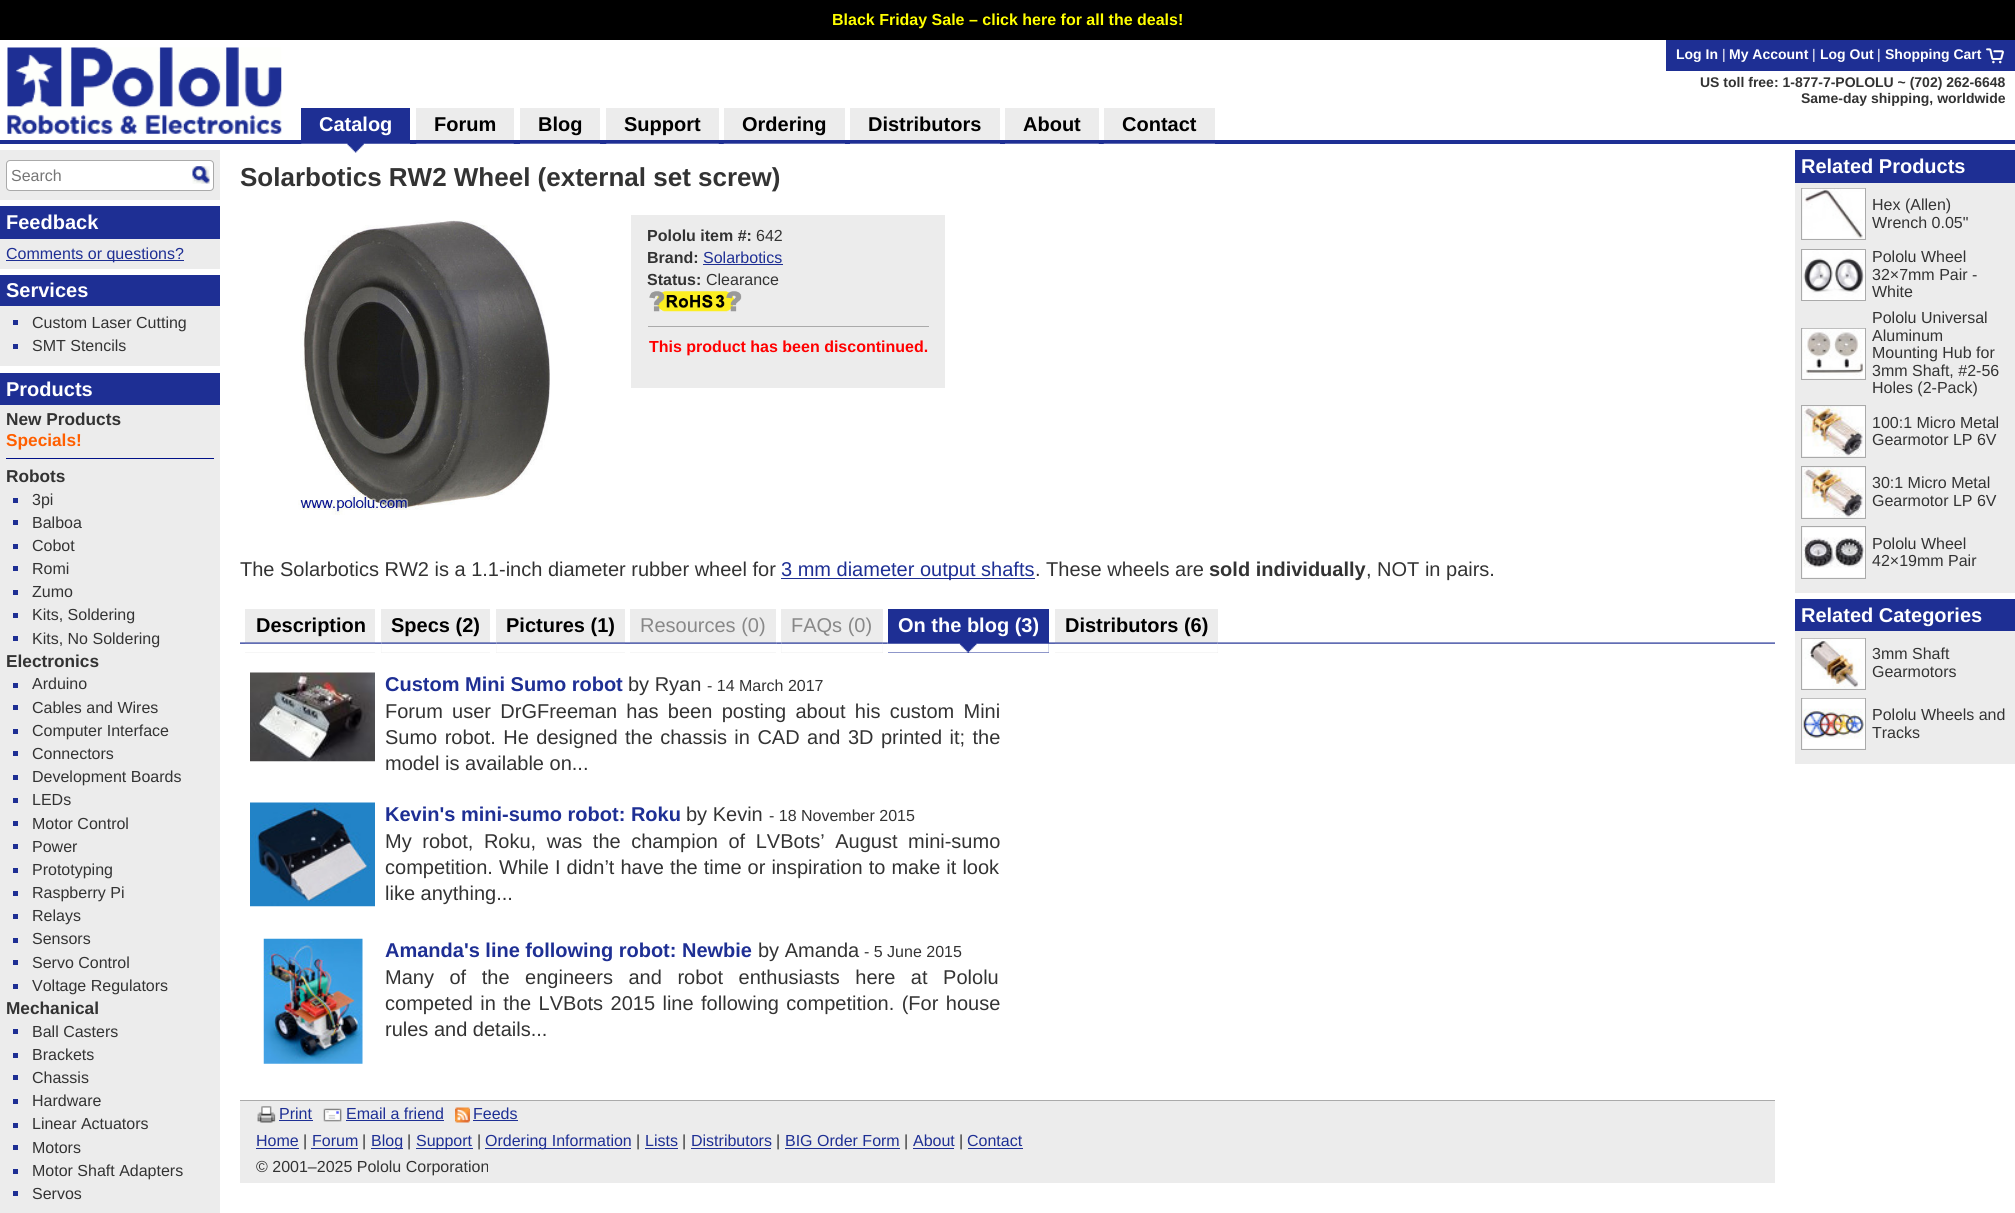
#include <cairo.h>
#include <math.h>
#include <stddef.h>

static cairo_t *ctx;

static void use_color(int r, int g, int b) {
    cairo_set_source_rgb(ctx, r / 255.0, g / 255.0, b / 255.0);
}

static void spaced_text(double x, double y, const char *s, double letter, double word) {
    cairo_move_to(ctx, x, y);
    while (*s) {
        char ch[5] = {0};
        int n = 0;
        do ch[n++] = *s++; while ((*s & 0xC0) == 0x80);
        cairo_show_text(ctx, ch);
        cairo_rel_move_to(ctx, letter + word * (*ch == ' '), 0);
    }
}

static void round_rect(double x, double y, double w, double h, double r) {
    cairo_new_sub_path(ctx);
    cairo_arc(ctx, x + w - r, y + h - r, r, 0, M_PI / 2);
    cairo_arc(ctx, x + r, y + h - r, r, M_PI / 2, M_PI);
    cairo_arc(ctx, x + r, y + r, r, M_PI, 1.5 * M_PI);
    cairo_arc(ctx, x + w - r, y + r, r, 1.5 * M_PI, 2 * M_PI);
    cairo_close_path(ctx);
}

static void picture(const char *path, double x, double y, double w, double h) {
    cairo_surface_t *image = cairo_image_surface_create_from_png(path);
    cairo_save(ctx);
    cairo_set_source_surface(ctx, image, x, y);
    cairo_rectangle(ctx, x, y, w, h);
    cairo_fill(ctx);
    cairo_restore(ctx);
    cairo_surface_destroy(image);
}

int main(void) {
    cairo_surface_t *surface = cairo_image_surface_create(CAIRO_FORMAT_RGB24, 2015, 1213);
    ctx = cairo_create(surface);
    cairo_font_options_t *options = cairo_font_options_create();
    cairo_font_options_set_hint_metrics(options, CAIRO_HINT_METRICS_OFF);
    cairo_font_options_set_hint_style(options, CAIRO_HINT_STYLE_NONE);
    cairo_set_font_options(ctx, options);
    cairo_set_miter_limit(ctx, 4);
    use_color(255, 255, 255);
    cairo_paint(ctx);
    use_color(0, 0, 0);
    cairo_rectangle(ctx, 0, 0, 2015, 40);
    cairo_fill(ctx);
    cairo_select_font_face(ctx, "Liberation Sans", CAIRO_FONT_SLANT_NORMAL, CAIRO_FONT_WEIGHT_BOLD);
    cairo_set_font_size(ctx, 16);
    use_color(255, 255, 0);
    cairo_move_to(ctx, 832, 25);
    cairo_show_text(ctx, "Black Friday Sale – click here for all the deals!");
    use_color(30, 47, 148);
    cairo_rectangle(ctx, 0, 140, 2015, 4);
    cairo_fill(ctx);
    picture("img1.png", 7, 47, 275, 87);
    cairo_rectangle(ctx, 1666, 40, 349, 31);
    cairo_fill(ctx);
    cairo_set_font_size(ctx, 14);
    use_color(255, 255, 255);
    cairo_move_to(ctx, 1676, 59);
    cairo_show_text(ctx, "Log In");
    cairo_select_font_face(ctx, "Liberation Sans", CAIRO_FONT_SLANT_NORMAL, CAIRO_FONT_WEIGHT_NORMAL);
    cairo_move_to(ctx, 1722, 59);
    cairo_show_text(ctx, "|");
    cairo_select_font_face(ctx, "Liberation Sans", CAIRO_FONT_SLANT_NORMAL, CAIRO_FONT_WEIGHT_BOLD);
    cairo_move_to(ctx, 1729, 59);
    cairo_show_text(ctx, "My Account");
    cairo_select_font_face(ctx, "Liberation Sans", CAIRO_FONT_SLANT_NORMAL, CAIRO_FONT_WEIGHT_NORMAL);
    cairo_move_to(ctx, 1812, 59);
    cairo_show_text(ctx, "|");
    cairo_select_font_face(ctx, "Liberation Sans", CAIRO_FONT_SLANT_NORMAL, CAIRO_FONT_WEIGHT_BOLD);
    cairo_move_to(ctx, 1820, 59);
    cairo_show_text(ctx, "Log Out");
    cairo_select_font_face(ctx, "Liberation Sans", CAIRO_FONT_SLANT_NORMAL, CAIRO_FONT_WEIGHT_NORMAL);
    cairo_move_to(ctx, 1877, 59);
    cairo_show_text(ctx, "|");
    cairo_select_font_face(ctx, "Liberation Sans", CAIRO_FONT_SLANT_NORMAL, CAIRO_FONT_WEIGHT_BOLD);
    cairo_move_to(ctx, 1885, 59);
    cairo_show_text(ctx, "Shopping Cart");
    picture("img2.png", 1986, 48, 18, 16);
    use_color(51, 51, 51);
    cairo_move_to(ctx, 1700, 87);
    cairo_show_text(ctx, "US toll free: 1-877-7-POLOLU ~ (702) 262-6648");
    cairo_move_to(ctx, 1801, 103);
    cairo_show_text(ctx, "Same-day shipping, worldwide");
    picture("img3.png", 301, 143, 109, 10);
    use_color(30, 47, 148);
    cairo_rectangle(ctx, 301, 108, 109, 32);
    cairo_fill(ctx);
    cairo_set_font_size(ctx, 20);
    use_color(255, 255, 255);
    cairo_move_to(ctx, 319, 131);
    cairo_show_text(ctx, "Catalog");
    picture("img4.png", 416, 143, 98, 1);
    use_color(236, 236, 236);
    cairo_rectangle(ctx, 416, 108, 98, 32);
    cairo_fill(ctx);
    use_color(0, 0, 0);
    cairo_move_to(ctx, 434, 131);
    cairo_show_text(ctx, "Forum");
    use_color(98, 109, 180);
    cairo_rectangle(ctx, 520, 143, 80, 1);
    cairo_fill(ctx);
    use_color(236, 236, 236);
    cairo_rectangle(ctx, 520, 108, 80, 32);
    cairo_fill(ctx);
    use_color(0, 0, 0);
    cairo_move_to(ctx, 538, 131);
    cairo_show_text(ctx, "Blog");
    picture("img5.png", 606, 143, 113, 1);
    use_color(236, 236, 236);
    cairo_rectangle(ctx, 606, 108, 113, 32);
    cairo_fill(ctx);
    use_color(0, 0, 0);
    cairo_move_to(ctx, 624, 131);
    cairo_show_text(ctx, "Support");
    picture("img6.png", 723, 143, 122, 1);
    use_color(236, 236, 236);
    cairo_rectangle(ctx, 724, 108, 121, 32);
    cairo_fill(ctx);
    use_color(0, 0, 0);
    cairo_move_to(ctx, 742, 131);
    cairo_show_text(ctx, "Ordering");
    use_color(98, 109, 180);
    cairo_rectangle(ctx, 850, 143, 150, 1);
    cairo_fill(ctx);
    use_color(236, 236, 236);
    cairo_rectangle(ctx, 850, 108, 150, 32);
    cairo_fill(ctx);
    use_color(0, 0, 0);
    cairo_move_to(ctx, 868, 131);
    cairo_show_text(ctx, "Distributors");
    picture("img7.png", 1005, 143, 94, 1);
    use_color(236, 236, 236);
    cairo_rectangle(ctx, 1005, 108, 94, 32);
    cairo_fill(ctx);
    use_color(0, 0, 0);
    cairo_move_to(ctx, 1023, 131);
    cairo_show_text(ctx, "About");
    picture("img8.png", 1103, 143, 112, 1);
    use_color(236, 236, 236);
    cairo_rectangle(ctx, 1104, 108, 111, 32);
    cairo_fill(ctx);
    use_color(0, 0, 0);
    cairo_move_to(ctx, 1122, 131);
    cairo_show_text(ctx, "Contact");
    use_color(236, 236, 236);
    cairo_rectangle(ctx, 0, 150, 220, 50);
    cairo_fill(ctx);
    use_color(255, 255, 255);
    round_rect(6.5, 160.5, 207, 30, 3.5);
    cairo_fill_preserve(ctx);
    use_color(170, 170, 170);
    cairo_set_line_width(ctx, 1);
    cairo_stroke(ctx);
    cairo_select_font_face(ctx, "Liberation Sans", CAIRO_FONT_SLANT_NORMAL, CAIRO_FONT_WEIGHT_NORMAL);
    cairo_set_font_size(ctx, 16);
    use_color(117, 117, 117);
    cairo_move_to(ctx, 11, 181);
    cairo_show_text(ctx, "Search");
    picture("img9.png", 192, 166, 18, 18);
    use_color(30, 47, 148);
    cairo_rectangle(ctx, 0, 206, 220, 33);
    cairo_fill(ctx);
    cairo_select_font_face(ctx, "Liberation Sans", CAIRO_FONT_SLANT_NORMAL, CAIRO_FONT_WEIGHT_BOLD);
    cairo_set_font_size(ctx, 20);
    use_color(255, 255, 255);
    cairo_move_to(ctx, 6, 229);
    cairo_show_text(ctx, "Feedback");
    use_color(236, 236, 236);
    cairo_rectangle(ctx, 0, 239, 220, 30);
    cairo_fill(ctx);
    use_color(30, 47, 148);
    cairo_rectangle(ctx, 6, 260, 178, 1);
    cairo_fill(ctx);
    cairo_select_font_face(ctx, "Liberation Sans", CAIRO_FONT_SLANT_NORMAL, CAIRO_FONT_WEIGHT_NORMAL);
    cairo_set_font_size(ctx, 16);
    cairo_move_to(ctx, 6, 259);
    cairo_show_text(ctx, "Comments or questions?");
    cairo_rectangle(ctx, 0, 275, 220, 31);
    cairo_fill(ctx);
    cairo_select_font_face(ctx, "Liberation Sans", CAIRO_FONT_SLANT_NORMAL, CAIRO_FONT_WEIGHT_BOLD);
    cairo_set_font_size(ctx, 20);
    use_color(255, 255, 255);
    cairo_move_to(ctx, 6, 297);
    cairo_show_text(ctx, "Services");
    use_color(236, 236, 236);
    cairo_rectangle(ctx, 0, 306, 220, 60);
    cairo_fill(ctx);
    use_color(30, 47, 148);
    cairo_rectangle(ctx, 13, 320, 5, 5);
    cairo_fill(ctx);
    cairo_select_font_face(ctx, "Liberation Sans", CAIRO_FONT_SLANT_NORMAL, CAIRO_FONT_WEIGHT_NORMAL);
    cairo_set_font_size(ctx, 16);
    use_color(51, 51, 51);
    cairo_move_to(ctx, 32, 328);
    cairo_show_text(ctx, "Custom Laser Cutting");
    use_color(30, 47, 148);
    cairo_rectangle(ctx, 13, 344, 5, 5);
    cairo_fill(ctx);
    use_color(51, 51, 51);
    cairo_move_to(ctx, 32, 351);
    cairo_show_text(ctx, "SMT Stencils");
    use_color(30, 47, 148);
    cairo_rectangle(ctx, 0, 373, 220, 32);
    cairo_fill(ctx);
    cairo_select_font_face(ctx, "Liberation Sans", CAIRO_FONT_SLANT_NORMAL, CAIRO_FONT_WEIGHT_BOLD);
    cairo_set_font_size(ctx, 20);
    use_color(255, 255, 255);
    cairo_move_to(ctx, 6, 396);
    cairo_show_text(ctx, "Products");
    use_color(236, 236, 236);
    cairo_rectangle(ctx, 0, 405, 220, 808);
    cairo_fill(ctx);
    cairo_set_font_size(ctx, 17.25);
    use_color(51, 51, 51);
    cairo_move_to(ctx, 6, 425);
    cairo_show_text(ctx, "New Products");
    use_color(255, 95, 0);
    cairo_move_to(ctx, 6, 446);
    cairo_show_text(ctx, "Specials!");
    use_color(0, 17, 136);
    cairo_rectangle(ctx, 6, 458, 208, 1);
    cairo_fill(ctx);
    use_color(51, 51, 51);
    cairo_move_to(ctx, 6, 482);
    cairo_show_text(ctx, "Robots");
    use_color(30, 47, 148);
    cairo_rectangle(ctx, 13, 498, 5, 5);
    cairo_fill(ctx);
    cairo_select_font_face(ctx, "Liberation Sans", CAIRO_FONT_SLANT_NORMAL, CAIRO_FONT_WEIGHT_NORMAL);
    cairo_set_font_size(ctx, 16);
    use_color(51, 51, 51);
    cairo_move_to(ctx, 32, 505);
    cairo_show_text(ctx, "3pi");
    use_color(30, 47, 148);
    cairo_rectangle(ctx, 13, 520, 5, 5);
    cairo_fill(ctx);
    use_color(51, 51, 51);
    cairo_move_to(ctx, 32, 528);
    cairo_show_text(ctx, "Balboa");
    use_color(30, 47, 148);
    cairo_rectangle(ctx, 13, 544, 5, 5);
    cairo_fill(ctx);
    use_color(51, 51, 51);
    cairo_move_to(ctx, 32, 551);
    cairo_show_text(ctx, "Cobot");
    use_color(30, 47, 148);
    cairo_rectangle(ctx, 13, 566, 5, 5);
    cairo_fill(ctx);
    use_color(51, 51, 51);
    cairo_move_to(ctx, 32, 574);
    cairo_show_text(ctx, "Romi");
    use_color(30, 47, 148);
    cairo_rectangle(ctx, 13, 590, 5, 5);
    cairo_fill(ctx);
    use_color(51, 51, 51);
    cairo_move_to(ctx, 32, 597);
    cairo_show_text(ctx, "Zumo");
    use_color(30, 47, 148);
    cairo_rectangle(ctx, 13, 613, 5, 5);
    cairo_fill(ctx);
    use_color(51, 51, 51);
    cairo_move_to(ctx, 32, 620);
    cairo_show_text(ctx, "Kits, Soldering");
    use_color(30, 47, 148);
    cairo_rectangle(ctx, 13, 636, 5, 5);
    cairo_fill(ctx);
    use_color(51, 51, 51);
    cairo_move_to(ctx, 32, 644);
    cairo_show_text(ctx, "Kits, No Soldering");
    cairo_select_font_face(ctx, "Liberation Sans", CAIRO_FONT_SLANT_NORMAL, CAIRO_FONT_WEIGHT_BOLD);
    cairo_set_font_size(ctx, 17.25);
    cairo_move_to(ctx, 6, 667);
    cairo_show_text(ctx, "Electronics");
    use_color(30, 47, 148);
    cairo_rectangle(ctx, 13, 683, 5, 5);
    cairo_fill(ctx);
    cairo_select_font_face(ctx, "Liberation Sans", CAIRO_FONT_SLANT_NORMAL, CAIRO_FONT_WEIGHT_NORMAL);
    cairo_set_font_size(ctx, 16);
    use_color(51, 51, 51);
    cairo_move_to(ctx, 32, 689);
    cairo_show_text(ctx, "Arduino");
    use_color(30, 47, 148);
    cairo_rectangle(ctx, 13, 705, 5, 5);
    cairo_fill(ctx);
    use_color(51, 51, 51);
    cairo_move_to(ctx, 32, 713);
    cairo_show_text(ctx, "Cables and Wires");
    use_color(30, 47, 148);
    cairo_rectangle(ctx, 13, 729, 5, 5);
    cairo_fill(ctx);
    use_color(51, 51, 51);
    cairo_move_to(ctx, 32, 736);
    cairo_show_text(ctx, "Computer Interface");
    use_color(30, 47, 148);
    cairo_rectangle(ctx, 13, 751, 5, 5);
    cairo_fill(ctx);
    use_color(51, 51, 51);
    cairo_move_to(ctx, 32, 759);
    cairo_show_text(ctx, "Connectors");
    use_color(30, 47, 148);
    cairo_rectangle(ctx, 13, 775, 5, 5);
    cairo_fill(ctx);
    use_color(51, 51, 51);
    cairo_move_to(ctx, 32, 782);
    cairo_show_text(ctx, "Development Boards");
    use_color(30, 47, 148);
    cairo_rectangle(ctx, 13, 798, 5, 5);
    cairo_fill(ctx);
    use_color(51, 51, 51);
    cairo_move_to(ctx, 32, 805);
    cairo_show_text(ctx, "LEDs");
    use_color(30, 47, 148);
    cairo_rectangle(ctx, 13, 821, 5, 5);
    cairo_fill(ctx);
    use_color(51, 51, 51);
    cairo_move_to(ctx, 32, 829);
    cairo_show_text(ctx, "Motor Control");
    use_color(30, 47, 148);
    cairo_rectangle(ctx, 13, 844, 5, 5);
    cairo_fill(ctx);
    use_color(51, 51, 51);
    cairo_move_to(ctx, 32, 852);
    cairo_show_text(ctx, "Power");
    use_color(30, 47, 148);
    cairo_rectangle(ctx, 13, 868, 5, 5);
    cairo_fill(ctx);
    use_color(51, 51, 51);
    cairo_move_to(ctx, 32, 875);
    cairo_show_text(ctx, "Prototyping");
    use_color(30, 47, 148);
    cairo_rectangle(ctx, 13, 891, 5, 5);
    cairo_fill(ctx);
    use_color(51, 51, 51);
    cairo_move_to(ctx, 32, 898);
    cairo_show_text(ctx, "Raspberry Pi");
    use_color(30, 47, 148);
    cairo_rectangle(ctx, 13, 914, 5, 5);
    cairo_fill(ctx);
    use_color(51, 51, 51);
    cairo_move_to(ctx, 32, 921);
    cairo_show_text(ctx, "Relays");
    use_color(30, 47, 148);
    cairo_rectangle(ctx, 13, 938, 5, 5);
    cairo_fill(ctx);
    use_color(51, 51, 51);
    cairo_move_to(ctx, 32, 944);
    cairo_show_text(ctx, "Sensors");
    use_color(30, 47, 148);
    cairo_rectangle(ctx, 13, 960, 5, 5);
    cairo_fill(ctx);
    use_color(51, 51, 51);
    cairo_move_to(ctx, 32, 968);
    cairo_show_text(ctx, "Servo Control");
    use_color(30, 47, 148);
    cairo_rectangle(ctx, 13, 984, 5, 5);
    cairo_fill(ctx);
    use_color(51, 51, 51);
    cairo_move_to(ctx, 32, 991);
    cairo_show_text(ctx, "Voltage Regulators");
    cairo_select_font_face(ctx, "Liberation Sans", CAIRO_FONT_SLANT_NORMAL, CAIRO_FONT_WEIGHT_BOLD);
    cairo_set_font_size(ctx, 17.25);
    cairo_move_to(ctx, 6, 1014);
    cairo_show_text(ctx, "Mechanical");
    use_color(30, 47, 148);
    cairo_rectangle(ctx, 13, 1029, 5, 5);
    cairo_fill(ctx);
    cairo_select_font_face(ctx, "Liberation Sans", CAIRO_FONT_SLANT_NORMAL, CAIRO_FONT_WEIGHT_NORMAL);
    cairo_set_font_size(ctx, 16);
    use_color(51, 51, 51);
    cairo_move_to(ctx, 32, 1037);
    cairo_show_text(ctx, "Ball Casters");
    use_color(30, 47, 148);
    cairo_rectangle(ctx, 13, 1053, 5, 5);
    cairo_fill(ctx);
    use_color(51, 51, 51);
    cairo_move_to(ctx, 32, 1060);
    cairo_show_text(ctx, "Brackets");
    use_color(30, 47, 148);
    cairo_rectangle(ctx, 13, 1075, 5, 5);
    cairo_fill(ctx);
    use_color(51, 51, 51);
    cairo_move_to(ctx, 32, 1083);
    cairo_show_text(ctx, "Chassis");
    use_color(30, 47, 148);
    cairo_rectangle(ctx, 13, 1099, 5, 5);
    cairo_fill(ctx);
    use_color(51, 51, 51);
    cairo_move_to(ctx, 32, 1106);
    cairo_show_text(ctx, "Hardware");
    use_color(30, 47, 148);
    cairo_rectangle(ctx, 13, 1123, 5, 5);
    cairo_fill(ctx);
    use_color(51, 51, 51);
    cairo_move_to(ctx, 32, 1129);
    cairo_show_text(ctx, "Linear Actuators");
    use_color(30, 47, 148);
    cairo_rectangle(ctx, 13, 1145, 5, 5);
    cairo_fill(ctx);
    use_color(51, 51, 51);
    cairo_move_to(ctx, 32, 1153);
    cairo_show_text(ctx, "Motors");
    use_color(30, 47, 148);
    cairo_rectangle(ctx, 13, 1169, 5, 5);
    cairo_fill(ctx);
    use_color(51, 51, 51);
    cairo_move_to(ctx, 32, 1176);
    cairo_show_text(ctx, "Motor Shaft Adapters");
    use_color(30, 47, 148);
    cairo_rectangle(ctx, 13, 1191, 5, 5);
    cairo_fill(ctx);
    use_color(51, 51, 51);
    cairo_move_to(ctx, 32, 1199);
    cairo_show_text(ctx, "Servos");
    cairo_select_font_face(ctx, "Liberation Sans", CAIRO_FONT_SLANT_NORMAL, CAIRO_FONT_WEIGHT_BOLD);
    cairo_set_font_size(ctx, 26);
    cairo_move_to(ctx, 240, 186);
    cairo_show_text(ctx, "Solarbotics RW2 Wheel (external set screw)");
    picture("img10.png", 298, 220, 252, 295);
    use_color(236, 236, 236);
    cairo_rectangle(ctx, 631, 215, 314, 173);
    cairo_fill(ctx);
    cairo_set_font_size(ctx, 16);
    use_color(51, 51, 51);
    cairo_move_to(ctx, 647, 241);
    cairo_show_text(ctx, "Pololu item #:");
    cairo_select_font_face(ctx, "Liberation Sans", CAIRO_FONT_SLANT_NORMAL, CAIRO_FONT_WEIGHT_NORMAL);
    cairo_move_to(ctx, 756, 241);
    cairo_show_text(ctx, "642");
    cairo_select_font_face(ctx, "Liberation Sans", CAIRO_FONT_SLANT_NORMAL, CAIRO_FONT_WEIGHT_BOLD);
    cairo_move_to(ctx, 647, 263);
    cairo_show_text(ctx, "Brand:");
    cairo_select_font_face(ctx, "Liberation Sans", CAIRO_FONT_SLANT_NORMAL, CAIRO_FONT_WEIGHT_NORMAL);
    use_color(30, 47, 148);
    cairo_move_to(ctx, 703, 263);
    cairo_show_text(ctx, "Solarbotics");
    cairo_rectangle(ctx, 703, 264, 80, 1);
    cairo_fill(ctx);
    cairo_select_font_face(ctx, "Liberation Sans", CAIRO_FONT_SLANT_NORMAL, CAIRO_FONT_WEIGHT_BOLD);
    use_color(51, 51, 51);
    cairo_move_to(ctx, 647, 285);
    cairo_show_text(ctx, "Status:");
    cairo_select_font_face(ctx, "Liberation Sans", CAIRO_FONT_SLANT_NORMAL, CAIRO_FONT_WEIGHT_NORMAL);
    cairo_move_to(ctx, 706, 285);
    cairo_show_text(ctx, "Clearance");
    picture("img11.png", 649, 291, 93, 21);
    use_color(170, 170, 170);
    cairo_rectangle(ctx, 648, 326, 281, 1);
    cairo_fill(ctx);
    cairo_select_font_face(ctx, "Liberation Sans", CAIRO_FONT_SLANT_NORMAL, CAIRO_FONT_WEIGHT_BOLD);
    use_color(255, 0, 0);
    cairo_move_to(ctx, 649, 352);
    cairo_show_text(ctx, "This product has been discontinued.");
    cairo_select_font_face(ctx, "Liberation Sans", CAIRO_FONT_SLANT_NORMAL, CAIRO_FONT_WEIGHT_NORMAL);
    cairo_set_font_size(ctx, 20);
    use_color(51, 51, 51);
    cairo_move_to(ctx, 240, 576);
    cairo_show_text(ctx, "The Solarbotics RW2 is a 1.1-inch diameter rubber wheel for");
    use_color(30, 47, 148);
    cairo_rectangle(ctx, 781, 578, 254, 1);
    cairo_fill(ctx);
    cairo_move_to(ctx, 781, 576);
    cairo_show_text(ctx, "3 mm diameter output shafts");
    use_color(51, 51, 51);
    cairo_move_to(ctx, 1035, 576);
    cairo_show_text(ctx, ". These wheels are");
    cairo_select_font_face(ctx, "Liberation Sans", CAIRO_FONT_SLANT_NORMAL, CAIRO_FONT_WEIGHT_BOLD);
    cairo_move_to(ctx, 1209, 576);
    cairo_show_text(ctx, "sold individually");
    cairo_select_font_face(ctx, "Liberation Sans", CAIRO_FONT_SLANT_NORMAL, CAIRO_FONT_WEIGHT_NORMAL);
    cairo_move_to(ctx, 1366, 576);
    cairo_show_text(ctx, ", NOT in pairs.");
    use_color(236, 236, 236);
    cairo_rectangle(ctx, 245, 609, 130, 44);
    cairo_fill(ctx);
    picture("img12.png", 245, 642, 130, 11);
    cairo_select_font_face(ctx, "Liberation Sans", CAIRO_FONT_SLANT_NORMAL, CAIRO_FONT_WEIGHT_BOLD);
    use_color(0, 0, 0);
    cairo_move_to(ctx, 256, 632);
    cairo_show_text(ctx, "Description");
    use_color(236, 236, 236);
    cairo_rectangle(ctx, 381, 609, 109, 44);
    cairo_fill(ctx);
    picture("img13.png", 381, 642, 109, 11);
    use_color(0, 0, 0);
    cairo_move_to(ctx, 391, 632);
    cairo_show_text(ctx, "Specs (2)");
    use_color(236, 236, 236);
    cairo_rectangle(ctx, 496, 609, 129, 44);
    cairo_fill(ctx);
    picture("img14.png", 496, 642, 129, 11);
    use_color(0, 0, 0);
    cairo_move_to(ctx, 506, 632);
    cairo_show_text(ctx, "Pictures (1)");
    use_color(236, 236, 236);
    cairo_rectangle(ctx, 630, 609, 146, 44);
    cairo_fill(ctx);
    picture("img15.png", 630, 642, 147, 11);
    cairo_select_font_face(ctx, "Liberation Sans", CAIRO_FONT_SLANT_NORMAL, CAIRO_FONT_WEIGHT_NORMAL);
    use_color(136, 136, 136);
    cairo_move_to(ctx, 640, 632);
    cairo_show_text(ctx, "Resources (0)");
    use_color(236, 236, 236);
    cairo_rectangle(ctx, 781, 609, 102, 44);
    cairo_fill(ctx);
    picture("img16.png", 781, 642, 102, 11);
    use_color(136, 136, 136);
    cairo_move_to(ctx, 791, 632);
    cairo_show_text(ctx, "FAQs (0)");
    use_color(30, 47, 148);
    cairo_rectangle(ctx, 888, 609, 161, 44);
    cairo_fill(ctx);
    picture("img22.png", 882, 642, 6, 10);
    picture("img17.png", 887, 642, 162, 11);
    cairo_select_font_face(ctx, "Liberation Sans", CAIRO_FONT_SLANT_NORMAL, CAIRO_FONT_WEIGHT_BOLD);
    use_color(255, 255, 255);
    cairo_move_to(ctx, 898, 632);
    cairo_show_text(ctx, "On the blog (3)");
    use_color(236, 236, 236);
    cairo_rectangle(ctx, 1055, 609, 163, 44);
    cairo_fill(ctx);
    picture("img18.png", 1055, 642, 163, 11);
    use_color(0, 0, 0);
    cairo_move_to(ctx, 1065, 632);
    cairo_show_text(ctx, "Distributors (6)");
    picture("img19.png", 240, 642, 5, 2);
    picture("img20.png", 375, 642, 6, 2);
    picture("img20.png", 490, 642, 6, 2);
    picture("img19.png", 625, 642, 5, 2);
    picture("img21.png", 776, 642, 5, 2);
    picture("img23.png", 1048, 642, 7, 11);
    picture("img24.png", 1217, 642, 558, 10);
    picture("img25.png", 250, 672, 125, 90);
    use_color(30, 47, 148);
    cairo_move_to(ctx, 385, 691);
    cairo_show_text(ctx, "Custom Mini Sumo robot");
    cairo_select_font_face(ctx, "Liberation Sans", CAIRO_FONT_SLANT_NORMAL, CAIRO_FONT_WEIGHT_NORMAL);
    use_color(51, 51, 51);
    cairo_move_to(ctx, 628, 691);
    cairo_show_text(ctx, "by Ryan");
    cairo_set_font_size(ctx, 16);
    cairo_move_to(ctx, 707, 691);
    cairo_show_text(ctx, "- 14 March 2017");
    cairo_set_font_size(ctx, 20);
    spaced_text(385, 718, "Forum user DrGFreeman has been posting about his custom Mini", 0, 3.75);
    spaced_text(385, 744, "Sumo robot. He designed the chassis in CAD and 3D printed it; the", 0, 1.9);
    cairo_move_to(ctx, 385, 770);
    cairo_show_text(ctx, "model is available on...");
    picture("img26.png", 250, 802, 125, 105);
    cairo_select_font_face(ctx, "Liberation Sans", CAIRO_FONT_SLANT_NORMAL, CAIRO_FONT_WEIGHT_BOLD);
    use_color(30, 47, 148);
    cairo_move_to(ctx, 385, 821);
    cairo_show_text(ctx, "Kevin's mini-sumo robot: Roku");
    cairo_select_font_face(ctx, "Liberation Sans", CAIRO_FONT_SLANT_NORMAL, CAIRO_FONT_WEIGHT_NORMAL);
    use_color(51, 51, 51);
    cairo_move_to(ctx, 686, 821);
    cairo_show_text(ctx, "by Kevin");
    cairo_set_font_size(ctx, 16);
    cairo_move_to(ctx, 769, 821);
    cairo_show_text(ctx, "- 18 November 2015");
    cairo_set_font_size(ctx, 20);
    spaced_text(385, 848, "My robot, Roku, was the champion of LVBots’ August mini-sumo", 0, 5);
    spaced_text(385, 874, "competition. While I didn’t have the time or inspiration to make it look", 0, 0.5);
    cairo_move_to(ctx, 385, 900);
    cairo_show_text(ctx, "like anything...");
    picture("img27.png", 263, 938, 100, 126);
    cairo_select_font_face(ctx, "Liberation Sans", CAIRO_FONT_SLANT_NORMAL, CAIRO_FONT_WEIGHT_BOLD);
    use_color(30, 47, 148);
    cairo_move_to(ctx, 385, 957);
    cairo_show_text(ctx, "Amanda's line following robot: Newbie");
    cairo_select_font_face(ctx, "Liberation Sans", CAIRO_FONT_SLANT_NORMAL, CAIRO_FONT_WEIGHT_NORMAL);
    use_color(51, 51, 51);
    cairo_move_to(ctx, 758, 957);
    cairo_show_text(ctx, "by Amanda");
    cairo_set_font_size(ctx, 16);
    cairo_move_to(ctx, 864, 957);
    cairo_show_text(ctx, "- 5 June 2015");
    cairo_set_font_size(ctx, 20);
    spaced_text(385, 984, "Many of the engineers and robot enthusiasts here at Pololu", 0, 10);
    spaced_text(385, 1010, "competed in the LVBots 2015 line following competition. (For house", 0, 1.9);
    cairo_move_to(ctx, 385, 1036);
    cairo_show_text(ctx, "rules and details...");
    use_color(236, 236, 236);
    cairo_rectangle(ctx, 240, 1101, 1535, 82);
    cairo_fill(ctx);
    use_color(170, 170, 170);
    cairo_rectangle(ctx, 240, 1100, 1535, 1);
    cairo_fill(ctx);
    picture("img28.png", 257, 1106, 19, 17);
    cairo_set_font_size(ctx, 16);
    use_color(30, 47, 148);
    cairo_move_to(ctx, 279, 1119);
    cairo_show_text(ctx, "Print");
    cairo_rectangle(ctx, 279, 1120, 34, 1);
    cairo_fill(ctx);
    picture("img29.png", 323, 1108, 19, 14);
    cairo_move_to(ctx, 346, 1119);
    cairo_show_text(ctx, "Email a friend");
    cairo_rectangle(ctx, 346, 1120, 98, 1);
    cairo_fill(ctx);
    picture("img30.png", 455, 1107, 15, 16);
    cairo_move_to(ctx, 473, 1119);
    cairo_show_text(ctx, "Feeds");
    cairo_rectangle(ctx, 473, 1120, 45, 1);
    cairo_fill(ctx);
    cairo_move_to(ctx, 256, 1146);
    cairo_show_text(ctx, "Home");
    cairo_rectangle(ctx, 256, 1148, 43, 1);
    cairo_fill(ctx);
    use_color(51, 51, 51);
    cairo_move_to(ctx, 303, 1146);
    cairo_show_text(ctx, "|");
    use_color(30, 47, 148);
    cairo_move_to(ctx, 312, 1146);
    cairo_show_text(ctx, "Forum");
    cairo_rectangle(ctx, 311, 1148, 47, 1);
    cairo_fill(ctx);
    use_color(51, 51, 51);
    cairo_move_to(ctx, 362, 1146);
    cairo_show_text(ctx, "|");
    use_color(30, 47, 148);
    cairo_rectangle(ctx, 371, 1148, 32, 1);
    cairo_fill(ctx);
    cairo_move_to(ctx, 371, 1146);
    cairo_show_text(ctx, "Blog");
    use_color(51, 51, 51);
    cairo_move_to(ctx, 407, 1146);
    cairo_show_text(ctx, "|");
    use_color(30, 47, 148);
    cairo_rectangle(ctx, 416, 1148, 57, 1);
    cairo_fill(ctx);
    cairo_move_to(ctx, 416, 1146);
    cairo_show_text(ctx, "Support");
    use_color(51, 51, 51);
    cairo_move_to(ctx, 477, 1146);
    cairo_show_text(ctx, "|");
    use_color(30, 47, 148);
    cairo_rectangle(ctx, 485, 1148, 146, 1);
    cairo_fill(ctx);
    cairo_move_to(ctx, 485, 1146);
    cairo_show_text(ctx, "Ordering Information");
    use_color(51, 51, 51);
    cairo_move_to(ctx, 636, 1146);
    cairo_show_text(ctx, "|");
    use_color(30, 47, 148);
    cairo_move_to(ctx, 645, 1146);
    cairo_show_text(ctx, "Lists");
    cairo_rectangle(ctx, 645, 1148, 33, 1);
    cairo_fill(ctx);
    use_color(51, 51, 51);
    cairo_move_to(ctx, 682, 1146);
    cairo_show_text(ctx, "|");
    use_color(30, 47, 148);
    cairo_move_to(ctx, 691, 1146);
    cairo_show_text(ctx, "Distributors");
    cairo_rectangle(ctx, 691, 1148, 80, 1);
    cairo_fill(ctx);
    use_color(51, 51, 51);
    cairo_move_to(ctx, 776, 1146);
    cairo_show_text(ctx, "|");
    use_color(30, 47, 148);
    cairo_move_to(ctx, 785, 1146);
    cairo_show_text(ctx, "BIG Order Form");
    cairo_rectangle(ctx, 785, 1148, 115, 1);
    cairo_fill(ctx);
    use_color(51, 51, 51);
    cairo_move_to(ctx, 904, 1146);
    cairo_show_text(ctx, "|");
    use_color(30, 47, 148);
    cairo_move_to(ctx, 913, 1146);
    cairo_show_text(ctx, "About");
    cairo_rectangle(ctx, 913, 1148, 41, 1);
    cairo_fill(ctx);
    use_color(51, 51, 51);
    cairo_move_to(ctx, 959, 1146);
    cairo_show_text(ctx, "|");
    use_color(30, 47, 148);
    cairo_move_to(ctx, 967, 1146);
    cairo_show_text(ctx, "Contact");
    cairo_rectangle(ctx, 968, 1148, 55, 1);
    cairo_fill(ctx);
    use_color(51, 51, 51);
    cairo_move_to(ctx, 256, 1172);
    cairo_show_text(ctx, "© 2001–2025 Pololu Corporation");
    use_color(30, 47, 148);
    cairo_rectangle(ctx, 1795, 150, 220, 33);
    cairo_fill(ctx);
    cairo_select_font_face(ctx, "Liberation Sans", CAIRO_FONT_SLANT_NORMAL, CAIRO_FONT_WEIGHT_BOLD);
    cairo_set_font_size(ctx, 20);
    use_color(255, 255, 255);
    cairo_move_to(ctx, 1801, 173);
    cairo_show_text(ctx, "Related Products");
    use_color(236, 236, 236);
    cairo_rectangle(ctx, 1795, 183, 220, 410);
    cairo_fill(ctx);
    cairo_rectangle(ctx, 1801.5, 188.5, 64, 51);
    use_color(170, 170, 170);
    cairo_stroke(ctx);
    picture("img31.png", 1802, 188, 63, 51);
    cairo_select_font_face(ctx, "Liberation Sans", CAIRO_FONT_SLANT_NORMAL, CAIRO_FONT_WEIGHT_NORMAL);
    cairo_set_font_size(ctx, 16);
    use_color(51, 51, 51);
    cairo_move_to(ctx, 1872, 210);
    cairo_show_text(ctx, "Hex (Allen)");
    cairo_move_to(ctx, 1872, 228);
    cairo_show_text(ctx, "Wrench 0.05\"");
    cairo_rectangle(ctx, 1801.5, 249.5, 64, 51);
    use_color(170, 170, 170);
    cairo_stroke(ctx);
    picture("img32.png", 1802, 250, 63, 50);
    use_color(51, 51, 51);
    cairo_move_to(ctx, 1872, 262);
    cairo_show_text(ctx, "Pololu Wheel");
    cairo_move_to(ctx, 1872, 280);
    cairo_show_text(ctx, "32×7mm Pair -");
    cairo_move_to(ctx, 1872, 297);
    cairo_show_text(ctx, "White");
    cairo_rectangle(ctx, 1801.5, 328.5, 64, 51);
    use_color(170, 170, 170);
    cairo_stroke(ctx);
    picture("img33.png", 1802, 328, 63, 51);
    use_color(51, 51, 51);
    cairo_move_to(ctx, 1872, 323);
    cairo_show_text(ctx, "Pololu Universal");
    cairo_move_to(ctx, 1872, 341);
    cairo_show_text(ctx, "Aluminum");
    cairo_move_to(ctx, 1872, 358);
    cairo_show_text(ctx, "Mounting Hub for");
    cairo_move_to(ctx, 1872, 376);
    cairo_show_text(ctx, "3mm Shaft, #2-56");
    cairo_move_to(ctx, 1872, 393);
    cairo_show_text(ctx, "Holes (2-Pack)");
    cairo_rectangle(ctx, 1801.5, 405.5, 64, 52);
    use_color(170, 170, 170);
    cairo_stroke(ctx);
    picture("img34.png", 1802, 406, 63, 51);
    use_color(51, 51, 51);
    cairo_move_to(ctx, 1872, 428);
    cairo_show_text(ctx, "100:1 Micro Metal");
    cairo_move_to(ctx, 1872, 445);
    cairo_show_text(ctx, "Gearmotor LP 6V");
    cairo_rectangle(ctx, 1801.5, 466.5, 64, 52);
    use_color(170, 170, 170);
    cairo_stroke(ctx);
    picture("img35.png", 1802, 467, 63, 51);
    use_color(51, 51, 51);
    cairo_move_to(ctx, 1872, 488);
    cairo_show_text(ctx, "30:1 Micro Metal");
    cairo_move_to(ctx, 1872, 506);
    cairo_show_text(ctx, "Gearmotor LP 6V");
    cairo_rectangle(ctx, 1801.5, 526.5, 64, 52);
    use_color(170, 170, 170);
    cairo_stroke(ctx);
    picture("img36.png", 1802, 527, 63, 51);
    use_color(51, 51, 51);
    cairo_move_to(ctx, 1872, 549);
    cairo_show_text(ctx, "Pololu Wheel");
    cairo_move_to(ctx, 1872, 566);
    cairo_show_text(ctx, "42×19mm Pair");
    use_color(30, 47, 148);
    cairo_rectangle(ctx, 1795, 599, 220, 32);
    cairo_fill(ctx);
    cairo_select_font_face(ctx, "Liberation Sans", CAIRO_FONT_SLANT_NORMAL, CAIRO_FONT_WEIGHT_BOLD);
    cairo_set_font_size(ctx, 20);
    use_color(255, 255, 255);
    cairo_move_to(ctx, 1801, 622);
    cairo_show_text(ctx, "Related Categories");
    use_color(236, 236, 236);
    cairo_rectangle(ctx, 1795, 631, 220, 133);
    cairo_fill(ctx);
    cairo_rectangle(ctx, 1801.5, 638.5, 64, 51);
    use_color(170, 170, 170);
    cairo_stroke(ctx);
    picture("img37.png", 1802, 638, 63, 51);
    cairo_select_font_face(ctx, "Liberation Sans", CAIRO_FONT_SLANT_NORMAL, CAIRO_FONT_WEIGHT_NORMAL);
    cairo_set_font_size(ctx, 16);
    use_color(51, 51, 51);
    cairo_move_to(ctx, 1872, 659);
    cairo_show_text(ctx, "3mm Shaft");
    cairo_move_to(ctx, 1872, 677);
    cairo_show_text(ctx, "Gearmotors");
    cairo_rectangle(ctx, 1801.5, 698.5, 64, 51);
    use_color(170, 170, 170);
    cairo_stroke(ctx);
    picture("img38.png", 1802, 698, 63, 51);
    use_color(51, 51, 51);
    cairo_move_to(ctx, 1872, 720);
    cairo_show_text(ctx, "Pololu Wheels and");
    cairo_move_to(ctx, 1872, 738);
    cairo_show_text(ctx, "Tracks");
    cairo_surface_write_to_png(surface, "result.png");
    cairo_font_options_destroy(options);
    cairo_destroy(ctx);
    cairo_surface_destroy(surface);
    return 0;
}
